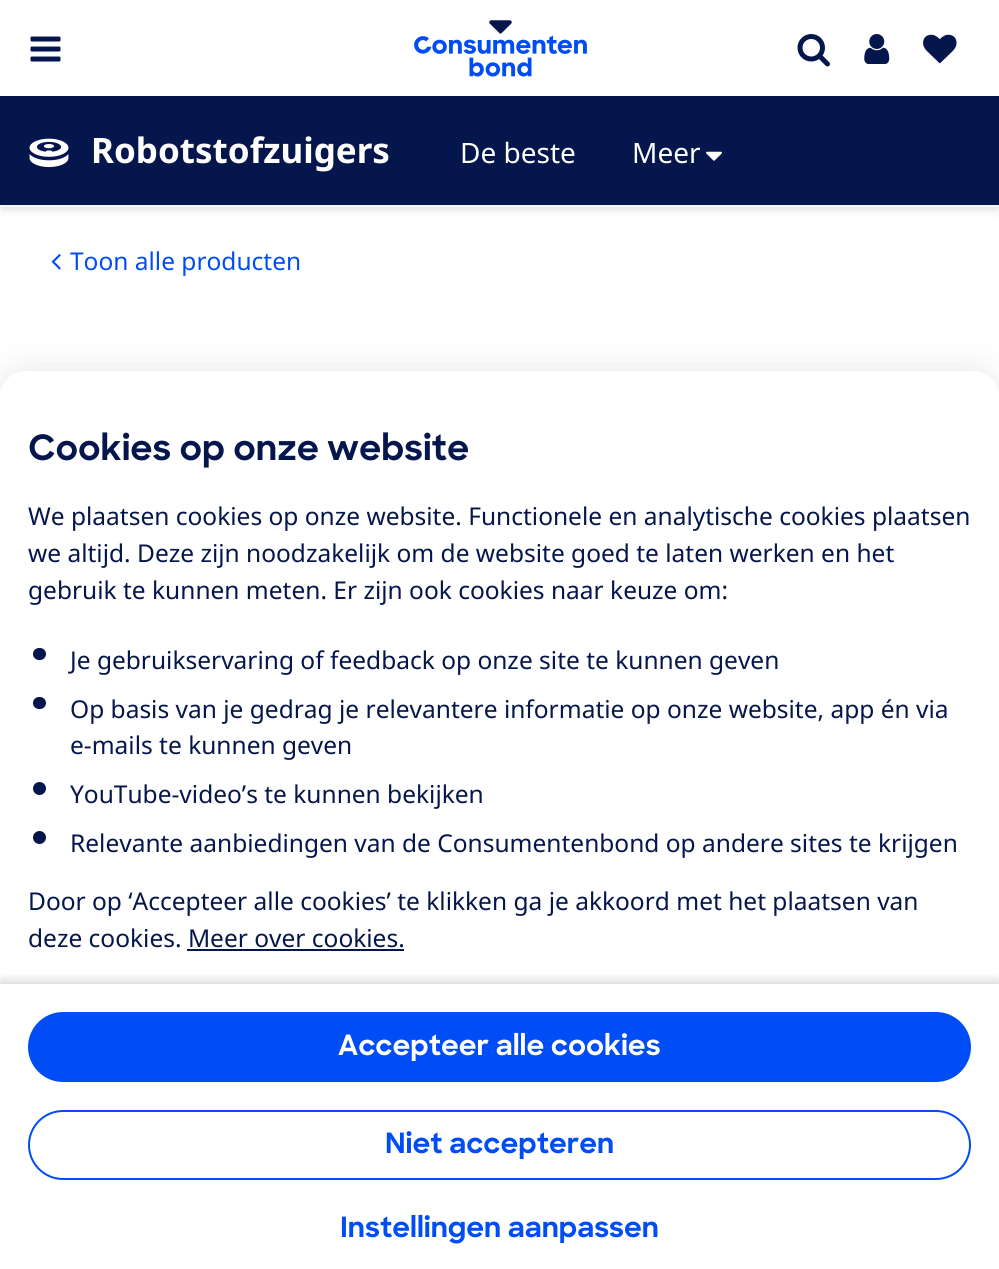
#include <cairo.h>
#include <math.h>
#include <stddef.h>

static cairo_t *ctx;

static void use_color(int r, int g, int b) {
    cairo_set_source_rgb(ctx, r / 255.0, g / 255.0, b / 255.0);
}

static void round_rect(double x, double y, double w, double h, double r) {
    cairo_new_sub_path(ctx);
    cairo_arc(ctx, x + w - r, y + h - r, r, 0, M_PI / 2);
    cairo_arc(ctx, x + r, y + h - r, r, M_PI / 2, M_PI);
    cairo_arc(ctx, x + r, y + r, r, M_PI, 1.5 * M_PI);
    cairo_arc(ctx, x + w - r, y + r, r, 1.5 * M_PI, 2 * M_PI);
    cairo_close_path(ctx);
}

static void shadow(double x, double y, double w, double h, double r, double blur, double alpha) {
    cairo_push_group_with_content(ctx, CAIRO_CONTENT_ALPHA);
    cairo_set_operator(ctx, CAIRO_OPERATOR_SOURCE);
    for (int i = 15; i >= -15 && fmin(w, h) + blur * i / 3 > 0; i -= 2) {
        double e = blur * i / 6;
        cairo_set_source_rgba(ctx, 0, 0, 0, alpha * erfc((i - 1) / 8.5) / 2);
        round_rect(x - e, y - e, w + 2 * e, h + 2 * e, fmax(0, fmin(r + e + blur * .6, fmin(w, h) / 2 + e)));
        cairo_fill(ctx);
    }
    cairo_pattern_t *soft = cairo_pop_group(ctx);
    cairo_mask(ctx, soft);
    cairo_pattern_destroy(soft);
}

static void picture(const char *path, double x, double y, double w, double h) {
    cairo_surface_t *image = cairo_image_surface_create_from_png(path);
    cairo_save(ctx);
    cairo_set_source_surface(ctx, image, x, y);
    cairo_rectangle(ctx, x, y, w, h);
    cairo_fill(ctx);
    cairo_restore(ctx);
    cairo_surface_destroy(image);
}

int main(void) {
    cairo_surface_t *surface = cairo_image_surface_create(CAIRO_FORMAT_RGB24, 999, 1269);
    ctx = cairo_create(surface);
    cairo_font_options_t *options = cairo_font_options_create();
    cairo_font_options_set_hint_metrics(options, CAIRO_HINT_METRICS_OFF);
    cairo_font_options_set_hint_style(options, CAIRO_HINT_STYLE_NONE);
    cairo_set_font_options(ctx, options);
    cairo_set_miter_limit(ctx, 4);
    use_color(255, 255, 255);
    cairo_paint(ctx);
    picture("img1.png", 30, 36, 31, 26);
    picture("img2.png", 414, 20, 173, 57);
    picture("img3.png", 797, 34, 33, 33);
    picture("img4.png", 864, 34, 26, 30);
    picture("img5.png", 923, 34, 34, 30);
    use_color(0, 0, 0);
    shadow(2, 102, 996, 105, 0, 3.5, 0.06);
    shadow(2, 105, 996, 105, 0, 5, 0.1);
    use_color(5, 22, 76);
    cairo_rectangle(ctx, 0, 96, 999, 109);
    cairo_fill(ctx);
    picture("img6.png", 29, 138, 40, 30);
    cairo_select_font_face(ctx, "Noto Sans", CAIRO_FONT_SLANT_NORMAL, CAIRO_FONT_WEIGHT_BOLD);
    cairo_set_font_size(ctx, 35);
    use_color(255, 255, 255);
    cairo_move_to(ctx, 91, 163);
    cairo_show_text(ctx, "Robotstofzuigers");
    cairo_select_font_face(ctx, "Noto Sans", CAIRO_FONT_SLANT_NORMAL, CAIRO_FONT_WEIGHT_NORMAL);
    cairo_set_font_size(ctx, 28);
    cairo_move_to(ctx, 460, 163);
    cairo_show_text(ctx, "De beste");
    cairo_move_to(ctx, 632, 163);
    cairo_show_text(ctx, "Meer");
    picture("img7.png", 706, 151, 16, 10);
    use_color(246, 246, 246);
    cairo_rectangle(ctx, 0, 205, 999, 2);
    cairo_fill(ctx);
    picture("img8.png", 51, 254, 10, 16);
    cairo_set_font_size(ctx, 24.5);
    use_color(0, 77, 245);
    cairo_move_to(ctx, 70, 270);
    cairo_show_text(ctx, "Toon alle producten");
    use_color(0, 0, 0);
    shadow(0, 371, 999, 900, 26, 17.5, 0.1);
    use_color(255, 255, 255);
    cairo_new_path(ctx);
    cairo_move_to(ctx, 26, 371);
    cairo_line_to(ctx, 973, 371);
    cairo_curve_to(ctx, 987.5, 371, 999, 382.5, 999, 397);
    cairo_line_to(ctx, 999, 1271);
    cairo_line_to(ctx, 0, 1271);
    cairo_line_to(ctx, 0, 397);
    cairo_curve_to(ctx, 0, 382.5, 11.5, 371, 26, 371);
    cairo_close_path(ctx);
    cairo_fill(ctx);
    cairo_select_font_face(ctx, "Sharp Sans", CAIRO_FONT_SLANT_NORMAL, CAIRO_FONT_WEIGHT_BOLD);
    cairo_set_font_size(ctx, 35);
    use_color(5, 22, 76);
    cairo_move_to(ctx, 28, 460);
    cairo_show_text(ctx, "Cookies op onze website");
    cairo_select_font_face(ctx, "Noto Sans", CAIRO_FONT_SLANT_NORMAL, CAIRO_FONT_WEIGHT_NORMAL);
    cairo_set_font_size(ctx, 24.5);
    cairo_move_to(ctx, 28, 525);
    cairo_show_text(ctx, "We plaatsen cookies op onze website. Functionele en analytische cookies plaatsen");
    cairo_move_to(ctx, 28, 562);
    cairo_show_text(ctx, "we altijd. Deze zijn noodzakelijk om de website goed te laten werken en het");
    cairo_move_to(ctx, 28, 599);
    cairo_show_text(ctx, "gebruik te kunnen meten. Er zijn ook cookies naar keuze om:");
    round_rect(33, 648, 13, 12, 6);
    cairo_fill(ctx);
    cairo_move_to(ctx, 70, 669);
    cairo_show_text(ctx, "Je gebruikservaring of feedback op onze site te kunnen geven");
    round_rect(33, 697, 13, 12, 6);
    cairo_fill(ctx);
    cairo_move_to(ctx, 70, 718);
    cairo_show_text(ctx, "Op basis van je gedrag je relevantere informatie op onze website, app én via");
    cairo_move_to(ctx, 70, 754);
    cairo_show_text(ctx, "e-mails te kunnen geven");
    cairo_new_path(ctx);
    cairo_arc(ctx, 39.5, 788.5, 6.5, 0, 2 * M_PI);
    cairo_fill(ctx);
    cairo_move_to(ctx, 70, 803);
    cairo_show_text(ctx, "YouTube-video’s te kunnen bekijken");
    cairo_new_path(ctx);
    cairo_arc(ctx, 39.5, 837.5, 6.5, 0, 2 * M_PI);
    cairo_fill(ctx);
    cairo_move_to(ctx, 70, 852);
    cairo_show_text(ctx, "Relevante aanbiedingen van de Consumentenbond op andere sites te krijgen");
    cairo_move_to(ctx, 28, 910);
    cairo_show_text(ctx, "Door op ‘Accepteer alle cookies’ te klikken ga je akkoord met het plaatsen van");
    cairo_move_to(ctx, 28, 947);
    cairo_show_text(ctx, "deze cookies. Meer over cookies.");
    cairo_rectangle(ctx, 187, 949, 217, 2);
    cairo_fill(ctx);
    cairo_save(ctx);
    cairo_rectangle(ctx, 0, 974, 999, 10);
    cairo_clip(ctx);
    use_color(0, 0, 0);
    shadow(0, 984, 999, 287, 0, 7, 0.25);
    cairo_restore(ctx);
    use_color(0, 77, 245);
    round_rect(28, 1012, 943, 70, 35);
    cairo_fill(ctx);
    cairo_select_font_face(ctx, "Sharp Sans", CAIRO_FONT_SLANT_NORMAL, CAIRO_FONT_WEIGHT_BOLD);
    cairo_set_font_size(ctx, 28);
    use_color(255, 255, 255);
    cairo_move_to(ctx, 338, 1055);
    cairo_show_text(ctx, "Accepteer alle cookies");
    round_rect(29, 1111, 941, 68, 34);
    use_color(0, 77, 245);
    cairo_stroke(ctx);
    cairo_move_to(ctx, 385, 1153);
    cairo_show_text(ctx, "Niet accepteren");
    cairo_move_to(ctx, 340, 1237);
    cairo_show_text(ctx, "Instellingen aanpassen");
    cairo_surface_write_to_png(surface, "result.png");
    cairo_font_options_destroy(options);
    cairo_destroy(ctx);
    cairo_surface_destroy(surface);
    return 0;
}
